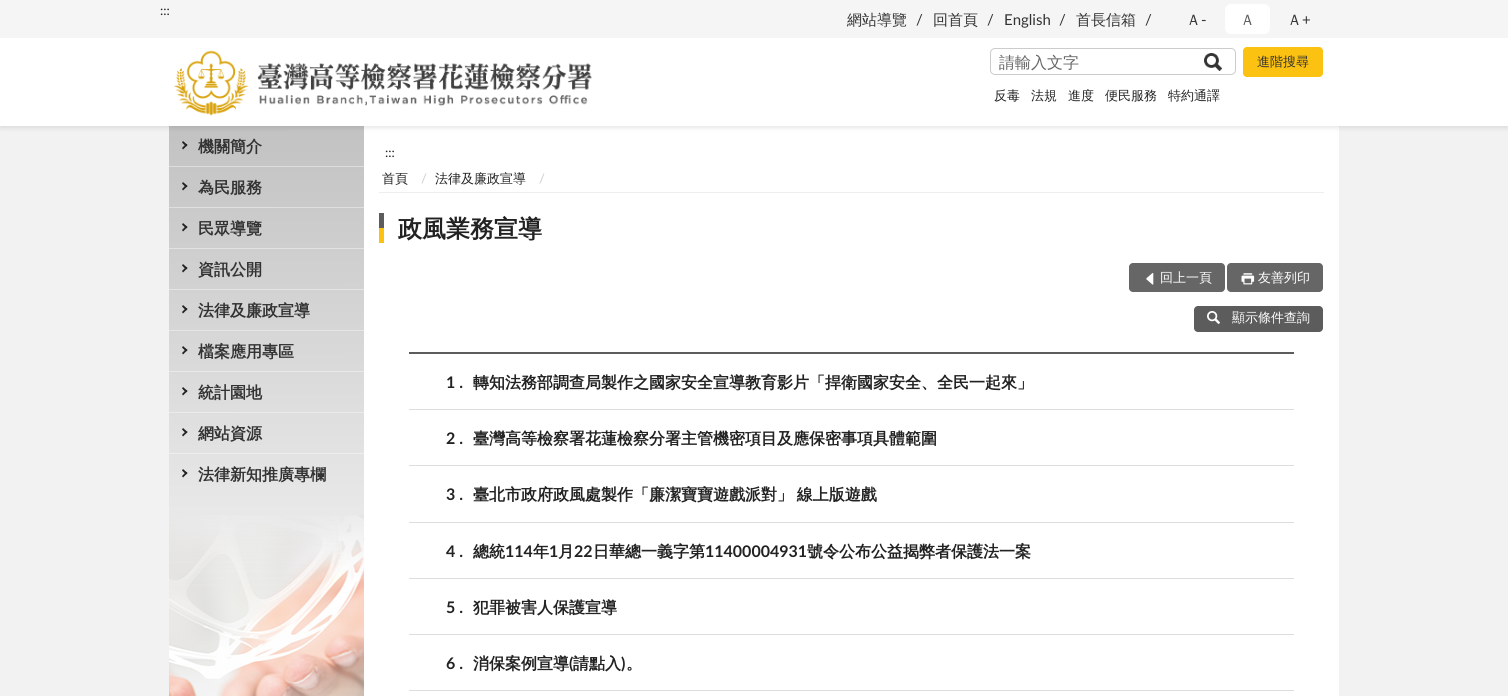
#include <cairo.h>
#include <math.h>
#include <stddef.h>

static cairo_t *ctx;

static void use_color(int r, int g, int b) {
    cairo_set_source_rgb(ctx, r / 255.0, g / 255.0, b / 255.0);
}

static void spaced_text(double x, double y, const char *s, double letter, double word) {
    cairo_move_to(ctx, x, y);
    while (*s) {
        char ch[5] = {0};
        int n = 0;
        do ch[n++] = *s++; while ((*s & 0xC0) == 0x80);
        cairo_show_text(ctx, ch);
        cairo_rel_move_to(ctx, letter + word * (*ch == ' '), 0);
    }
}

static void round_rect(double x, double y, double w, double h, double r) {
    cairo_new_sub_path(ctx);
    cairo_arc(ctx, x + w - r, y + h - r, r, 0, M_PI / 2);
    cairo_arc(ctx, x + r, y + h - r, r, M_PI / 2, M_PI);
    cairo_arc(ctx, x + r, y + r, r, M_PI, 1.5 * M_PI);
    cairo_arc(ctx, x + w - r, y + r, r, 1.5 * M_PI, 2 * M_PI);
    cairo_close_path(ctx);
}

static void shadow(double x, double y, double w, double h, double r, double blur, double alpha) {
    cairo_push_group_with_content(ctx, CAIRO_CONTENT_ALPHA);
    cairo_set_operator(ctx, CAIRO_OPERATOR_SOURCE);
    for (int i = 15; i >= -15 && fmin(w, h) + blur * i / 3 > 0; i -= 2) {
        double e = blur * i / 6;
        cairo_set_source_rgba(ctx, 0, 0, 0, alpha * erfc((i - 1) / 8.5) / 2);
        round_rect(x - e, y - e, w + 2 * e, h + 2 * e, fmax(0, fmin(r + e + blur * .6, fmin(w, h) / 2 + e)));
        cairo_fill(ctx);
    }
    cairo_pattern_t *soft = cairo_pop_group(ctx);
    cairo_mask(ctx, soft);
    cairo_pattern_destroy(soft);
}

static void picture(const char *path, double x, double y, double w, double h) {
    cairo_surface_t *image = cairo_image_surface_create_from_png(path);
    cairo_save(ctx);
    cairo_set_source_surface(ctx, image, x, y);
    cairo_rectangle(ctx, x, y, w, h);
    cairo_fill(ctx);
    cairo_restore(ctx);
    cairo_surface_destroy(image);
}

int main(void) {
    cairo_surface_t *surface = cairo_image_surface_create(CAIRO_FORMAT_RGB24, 1508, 696);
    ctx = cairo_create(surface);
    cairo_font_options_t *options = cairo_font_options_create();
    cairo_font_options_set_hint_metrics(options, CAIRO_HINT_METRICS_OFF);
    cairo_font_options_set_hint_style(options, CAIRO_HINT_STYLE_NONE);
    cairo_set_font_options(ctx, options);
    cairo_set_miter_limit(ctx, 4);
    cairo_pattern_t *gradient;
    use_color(242, 242, 242);
    cairo_paint(ctx);
    gradient = cairo_pattern_create_linear(266, 126, 267, 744);
    cairo_pattern_add_color_stop_rgba(gradient, 0, 0.761, 0.761, 0.761, 1);
    cairo_pattern_add_color_stop_rgba(gradient, 1, 1, 1, 1, 1);
    cairo_set_source(ctx, gradient);
    cairo_pattern_destroy(gradient);
    cairo_rectangle(ctx, 169, 126, 195, 570);
    cairo_fill(ctx);
    use_color(255, 255, 255);
    cairo_rectangle(ctx, 364, 126, 975, 570);
    cairo_fill(ctx);
    use_color(0, 0, 0);
    shadow(0, 2, 1508, 126, 0, 2.5, 0.1);
    use_color(255, 255, 255);
    cairo_rectangle(ctx, 0, 38, 1508, 88);
    cairo_fill(ctx);
    use_color(245, 245, 245);
    cairo_rectangle(ctx, 0, 0, 1508, 38);
    cairo_fill(ctx);
    cairo_select_font_face(ctx, "Lato", CAIRO_FONT_SLANT_NORMAL, CAIRO_FONT_WEIGHT_NORMAL);
    cairo_set_font_size(ctx, 13);
    use_color(34, 34, 34);
    cairo_move_to(ctx, 160, 15);
    cairo_show_text(ctx, ":::");
    cairo_select_font_face(ctx, "WenQuanYi Zen Hei Medium", CAIRO_FONT_SLANT_NORMAL, CAIRO_FONT_WEIGHT_NORMAL);
    cairo_set_font_size(ctx, 15);
    use_color(51, 51, 51);
    cairo_move_to(ctx, 847, 25);
    cairo_show_text(ctx, "網站導覽");
    cairo_select_font_face(ctx, "Lato", CAIRO_FONT_SLANT_NORMAL, CAIRO_FONT_WEIGHT_NORMAL);
    cairo_move_to(ctx, 916, 25);
    cairo_show_text(ctx, "/");
    cairo_select_font_face(ctx, "WenQuanYi Zen Hei Medium", CAIRO_FONT_SLANT_NORMAL, CAIRO_FONT_WEIGHT_NORMAL);
    cairo_move_to(ctx, 933, 25);
    cairo_show_text(ctx, "回首頁");
    cairo_select_font_face(ctx, "Lato", CAIRO_FONT_SLANT_NORMAL, CAIRO_FONT_WEIGHT_NORMAL);
    cairo_move_to(ctx, 987, 25);
    cairo_show_text(ctx, "/");
    cairo_move_to(ctx, 1004, 25);
    cairo_show_text(ctx, "English");
    cairo_move_to(ctx, 1059, 25);
    cairo_show_text(ctx, "/");
    cairo_select_font_face(ctx, "WenQuanYi Zen Hei Medium", CAIRO_FONT_SLANT_NORMAL, CAIRO_FONT_WEIGHT_NORMAL);
    cairo_move_to(ctx, 1076, 25);
    cairo_show_text(ctx, "首長信箱");
    cairo_select_font_face(ctx, "Lato", CAIRO_FONT_SLANT_NORMAL, CAIRO_FONT_WEIGHT_NORMAL);
    cairo_move_to(ctx, 1145, 25);
    cairo_show_text(ctx, "/");
    cairo_select_font_face(ctx, "WenQuanYi Zen Hei Medium", CAIRO_FONT_SLANT_NORMAL, CAIRO_FONT_WEIGHT_NORMAL);
    cairo_move_to(ctx, 1186, 25);
    cairo_show_text(ctx, "Ａ");
    cairo_select_font_face(ctx, "Lato", CAIRO_FONT_SLANT_NORMAL, CAIRO_FONT_WEIGHT_NORMAL);
    cairo_move_to(ctx, 1201, 25);
    cairo_show_text(ctx, "-");
    use_color(255, 255, 255);
    round_rect(1225, 4, 45, 30, 6);
    cairo_fill(ctx);
    cairo_select_font_face(ctx, "WenQuanYi Zen Hei Medium", CAIRO_FONT_SLANT_NORMAL, CAIRO_FONT_WEIGHT_NORMAL);
    use_color(92, 92, 92);
    cairo_move_to(ctx, 1240, 25);
    cairo_show_text(ctx, "Ａ");
    use_color(51, 51, 51);
    cairo_move_to(ctx, 1287, 25);
    cairo_show_text(ctx, "Ａ");
    cairo_select_font_face(ctx, "Lato", CAIRO_FONT_SLANT_NORMAL, CAIRO_FONT_WEIGHT_NORMAL);
    cairo_move_to(ctx, 1302, 25);
    cairo_show_text(ctx, "+");
    picture("img1.png", 173, 50, 419, 66);
    round_rect(990.5, 48.5, 245, 26, 4.5);
    use_color(204, 204, 204);
    cairo_set_line_width(ctx, 1);
    cairo_stroke(ctx);
    cairo_select_font_face(ctx, "WenQuanYi Zen Hei Medium", CAIRO_FONT_SLANT_NORMAL, CAIRO_FONT_WEIGHT_NORMAL);
    cairo_set_font_size(ctx, 16);
    use_color(102, 102, 102);
    cairo_move_to(ctx, 999, 68);
    cairo_show_text(ctx, "請輸入文字");
    picture("img2.png", 1204, 53, 18, 18);
    use_color(252, 194, 17);
    round_rect(1243.5, 47.5, 79, 29, 3.5);
    cairo_fill_preserve(ctx);
    cairo_stroke(ctx);
    cairo_set_font_size(ctx, 13);
    use_color(51, 51, 51);
    cairo_move_to(ctx, 1257, 66);
    cairo_show_text(ctx, "進階搜尋");
    use_color(34, 34, 34);
    cairo_move_to(ctx, 994, 100);
    cairo_show_text(ctx, "反毒");
    cairo_move_to(ctx, 1031, 100);
    cairo_show_text(ctx, "法規");
    cairo_move_to(ctx, 1068, 100);
    cairo_show_text(ctx, "進度");
    cairo_move_to(ctx, 1105, 100);
    cairo_show_text(ctx, "便民服務");
    cairo_move_to(ctx, 1168, 100);
    cairo_show_text(ctx, "特約通譯");
    use_color(221, 221, 221);
    cairo_rectangle(ctx, 169, 166, 195, 1);
    cairo_fill(ctx);
    use_color(34, 34, 34);
    cairo_new_path(ctx);
    cairo_move_to(ctx, 182, 142.5);
    cairo_line_to(ctx, 183, 141);
    cairo_line_to(ctx, 187.5, 145);
    cairo_line_to(ctx, 186, 146.5);
    cairo_close_path(ctx);
    cairo_fill(ctx);
    cairo_new_path(ctx);
    cairo_move_to(ctx, 182, 148);
    cairo_line_to(ctx, 186, 144);
    cairo_line_to(ctx, 187.5, 145);
    cairo_line_to(ctx, 183, 149.5);
    cairo_close_path(ctx);
    cairo_fill(ctx);
    cairo_select_font_face(ctx, "WenQuanYi Zen Hei", CAIRO_FONT_SLANT_NORMAL, CAIRO_FONT_WEIGHT_BOLD);
    cairo_set_font_size(ctx, 16);
    use_color(51, 51, 51);
    cairo_move_to(ctx, 198, 152);
    cairo_show_text(ctx, "機關簡介");
    use_color(223, 223, 223);
    cairo_rectangle(ctx, 169, 207, 195, 1);
    cairo_fill(ctx);
    use_color(34, 34, 34);
    cairo_new_path(ctx);
    cairo_move_to(ctx, 182, 183.5);
    cairo_line_to(ctx, 183, 182);
    cairo_line_to(ctx, 187.5, 186);
    cairo_line_to(ctx, 186, 187.5);
    cairo_close_path(ctx);
    cairo_fill(ctx);
    cairo_new_path(ctx);
    cairo_move_to(ctx, 182, 189);
    cairo_line_to(ctx, 186, 185);
    cairo_line_to(ctx, 187.5, 186);
    cairo_line_to(ctx, 183, 190.5);
    cairo_close_path(ctx);
    cairo_fill(ctx);
    use_color(51, 51, 51);
    cairo_move_to(ctx, 198, 193);
    cairo_show_text(ctx, "為民服務");
    use_color(226, 226, 226);
    cairo_rectangle(ctx, 169, 248, 195, 1);
    cairo_fill(ctx);
    use_color(34, 34, 34);
    cairo_new_path(ctx);
    cairo_move_to(ctx, 182, 224.5);
    cairo_line_to(ctx, 183, 223);
    cairo_line_to(ctx, 187.5, 227);
    cairo_line_to(ctx, 186, 228.5);
    cairo_close_path(ctx);
    cairo_fill(ctx);
    cairo_new_path(ctx);
    cairo_move_to(ctx, 182, 230);
    cairo_line_to(ctx, 186, 226);
    cairo_line_to(ctx, 187.5, 227);
    cairo_line_to(ctx, 183, 231.5);
    cairo_close_path(ctx);
    cairo_fill(ctx);
    use_color(51, 51, 51);
    cairo_move_to(ctx, 198, 234);
    cairo_show_text(ctx, "民眾導覽");
    use_color(228, 228, 228);
    cairo_rectangle(ctx, 169, 289, 195, 1);
    cairo_fill(ctx);
    use_color(34, 34, 34);
    cairo_new_path(ctx);
    cairo_move_to(ctx, 182, 265.5);
    cairo_line_to(ctx, 183, 264);
    cairo_line_to(ctx, 187.5, 268);
    cairo_line_to(ctx, 186, 269.5);
    cairo_close_path(ctx);
    cairo_fill(ctx);
    cairo_new_path(ctx);
    cairo_move_to(ctx, 182, 271);
    cairo_line_to(ctx, 186, 267);
    cairo_line_to(ctx, 187.5, 268);
    cairo_line_to(ctx, 183, 272.5);
    cairo_close_path(ctx);
    cairo_fill(ctx);
    use_color(51, 51, 51);
    cairo_move_to(ctx, 198, 275);
    cairo_show_text(ctx, "資訊公開");
    use_color(230, 230, 230);
    cairo_rectangle(ctx, 169, 330, 195, 1);
    cairo_fill(ctx);
    use_color(34, 34, 34);
    cairo_new_path(ctx);
    cairo_move_to(ctx, 182, 306.5);
    cairo_line_to(ctx, 183, 305);
    cairo_line_to(ctx, 187.5, 309);
    cairo_line_to(ctx, 186, 310.5);
    cairo_close_path(ctx);
    cairo_fill(ctx);
    cairo_new_path(ctx);
    cairo_move_to(ctx, 182, 312);
    cairo_line_to(ctx, 186, 308);
    cairo_line_to(ctx, 187.5, 309);
    cairo_line_to(ctx, 183, 313.5);
    cairo_close_path(ctx);
    cairo_fill(ctx);
    use_color(51, 51, 51);
    cairo_move_to(ctx, 198, 316);
    cairo_show_text(ctx, "法律及廉政宣導");
    use_color(233, 233, 233);
    cairo_rectangle(ctx, 169, 371, 195, 1);
    cairo_fill(ctx);
    use_color(34, 34, 34);
    cairo_new_path(ctx);
    cairo_move_to(ctx, 182, 347.5);
    cairo_line_to(ctx, 183, 346);
    cairo_line_to(ctx, 187.5, 350);
    cairo_line_to(ctx, 186, 351.5);
    cairo_close_path(ctx);
    cairo_fill(ctx);
    cairo_new_path(ctx);
    cairo_move_to(ctx, 182, 353);
    cairo_line_to(ctx, 186, 349);
    cairo_line_to(ctx, 187.5, 350);
    cairo_line_to(ctx, 183, 354.5);
    cairo_close_path(ctx);
    cairo_fill(ctx);
    use_color(51, 51, 51);
    cairo_move_to(ctx, 198, 357);
    cairo_show_text(ctx, "檔案應用專區");
    use_color(235, 235, 235);
    cairo_rectangle(ctx, 169, 412, 195, 1);
    cairo_fill(ctx);
    use_color(34, 34, 34);
    cairo_new_path(ctx);
    cairo_move_to(ctx, 182, 388.5);
    cairo_line_to(ctx, 183, 387);
    cairo_line_to(ctx, 187.5, 391);
    cairo_line_to(ctx, 186, 392.5);
    cairo_close_path(ctx);
    cairo_fill(ctx);
    cairo_new_path(ctx);
    cairo_move_to(ctx, 182, 394);
    cairo_line_to(ctx, 186, 390);
    cairo_line_to(ctx, 187.5, 391);
    cairo_line_to(ctx, 183, 395.5);
    cairo_close_path(ctx);
    cairo_fill(ctx);
    use_color(51, 51, 51);
    cairo_move_to(ctx, 198, 398);
    cairo_show_text(ctx, "統計園地");
    use_color(238, 238, 238);
    cairo_rectangle(ctx, 169, 453, 195, 1);
    cairo_fill(ctx);
    use_color(34, 34, 34);
    cairo_new_path(ctx);
    cairo_move_to(ctx, 182, 429.5);
    cairo_line_to(ctx, 183, 428);
    cairo_line_to(ctx, 187.5, 432);
    cairo_line_to(ctx, 186, 433.5);
    cairo_close_path(ctx);
    cairo_fill(ctx);
    cairo_new_path(ctx);
    cairo_move_to(ctx, 182, 435);
    cairo_line_to(ctx, 186, 431);
    cairo_line_to(ctx, 187.5, 432);
    cairo_line_to(ctx, 183, 436.5);
    cairo_close_path(ctx);
    cairo_fill(ctx);
    use_color(51, 51, 51);
    cairo_move_to(ctx, 198, 439);
    cairo_show_text(ctx, "網站資源");
    use_color(34, 34, 34);
    cairo_new_path(ctx);
    cairo_move_to(ctx, 182, 470.5);
    cairo_line_to(ctx, 183, 469);
    cairo_line_to(ctx, 187.5, 473);
    cairo_line_to(ctx, 186, 474.5);
    cairo_close_path(ctx);
    cairo_fill(ctx);
    cairo_new_path(ctx);
    cairo_move_to(ctx, 182, 476);
    cairo_line_to(ctx, 186, 472);
    cairo_line_to(ctx, 187.5, 473);
    cairo_line_to(ctx, 183, 477.5);
    cairo_close_path(ctx);
    cairo_fill(ctx);
    use_color(51, 51, 51);
    cairo_move_to(ctx, 198, 480);
    cairo_show_text(ctx, "法律新知推廣專欄");
    picture("img3.png", 169, 515, 195, 181);
    cairo_select_font_face(ctx, "Lato", CAIRO_FONT_SLANT_NORMAL, CAIRO_FONT_WEIGHT_NORMAL);
    cairo_set_font_size(ctx, 13);
    use_color(34, 34, 34);
    cairo_move_to(ctx, 385, 157);
    cairo_show_text(ctx, ":::");
    use_color(238, 238, 238);
    cairo_rectangle(ctx, 379, 192, 945, 1);
    cairo_fill(ctx);
    cairo_select_font_face(ctx, "WenQuanYi Zen Hei Medium", CAIRO_FONT_SLANT_NORMAL, CAIRO_FONT_WEIGHT_NORMAL);
    use_color(34, 34, 34);
    cairo_move_to(ctx, 382, 183);
    cairo_show_text(ctx, "首頁");
    cairo_select_font_face(ctx, "Lato", CAIRO_FONT_SLANT_NORMAL, CAIRO_FONT_WEIGHT_NORMAL);
    use_color(204, 204, 204);
    cairo_move_to(ctx, 421, 183);
    cairo_show_text(ctx, "/");
    cairo_select_font_face(ctx, "WenQuanYi Zen Hei Medium", CAIRO_FONT_SLANT_NORMAL, CAIRO_FONT_WEIGHT_NORMAL);
    use_color(34, 34, 34);
    cairo_move_to(ctx, 435, 183);
    cairo_show_text(ctx, "法律及廉政宣導");
    cairo_select_font_face(ctx, "Lato", CAIRO_FONT_SLANT_NORMAL, CAIRO_FONT_WEIGHT_NORMAL);
    use_color(204, 204, 204);
    cairo_move_to(ctx, 539, 183);
    cairo_show_text(ctx, "/");
    use_color(92, 92, 92);
    cairo_rectangle(ctx, 379, 213, 5, 15);
    cairo_fill(ctx);
    cairo_select_font_face(ctx, "WenQuanYi Zen Hei", CAIRO_FONT_SLANT_NORMAL, CAIRO_FONT_WEIGHT_BOLD);
    cairo_set_font_size(ctx, 24);
    use_color(34, 34, 34);
    cairo_move_to(ctx, 398, 237);
    cairo_show_text(ctx, "政風業務宣導");
    use_color(252, 194, 17);
    cairo_rectangle(ctx, 379, 228, 5, 15);
    cairo_fill(ctx);
    use_color(102, 102, 102);
    round_rect(1129, 263, 96, 29, 4);
    cairo_fill(ctx);
    picture("img4.png", 1146, 273, 8, 12);
    cairo_select_font_face(ctx, "WenQuanYi Zen Hei Medium", CAIRO_FONT_SLANT_NORMAL, CAIRO_FONT_WEIGHT_NORMAL);
    cairo_set_font_size(ctx, 13);
    use_color(255, 255, 255);
    cairo_move_to(ctx, 1160, 282);
    cairo_show_text(ctx, "回上一頁");
    use_color(102, 102, 102);
    round_rect(1227, 263, 96, 29, 4);
    cairo_fill(ctx);
    picture("img5.png", 1241, 273, 14, 12);
    use_color(255, 255, 255);
    cairo_move_to(ctx, 1258, 282);
    cairo_show_text(ctx, "友善列印");
    use_color(92, 92, 92);
    round_rect(1194, 306, 129, 26, 4);
    cairo_fill(ctx);
    picture("img6.png", 1207, 311, 13, 13);
    use_color(255, 255, 255);
    cairo_move_to(ctx, 1232, 322);
    cairo_show_text(ctx, "顯示條件查詢");
    use_color(92, 92, 92);
    cairo_rectangle(ctx, 409, 352, 885, 2);
    cairo_fill(ctx);
    use_color(221, 221, 221);
    cairo_rectangle(ctx, 409, 409, 885, 1);
    cairo_fill(ctx);
    cairo_select_font_face(ctx, "Lato", CAIRO_FONT_SLANT_NORMAL, CAIRO_FONT_WEIGHT_BOLD);
    cairo_set_font_size(ctx, 16);
    use_color(34, 34, 34);
    cairo_move_to(ctx, 446, 388);
    cairo_show_text(ctx, "1 .");
    cairo_select_font_face(ctx, "WenQuanYi Zen Hei", CAIRO_FONT_SLANT_NORMAL, CAIRO_FONT_WEIGHT_BOLD);
    cairo_move_to(ctx, 473, 388);
    cairo_show_text(ctx, "轉知法務部調查局製作之國家安全宣導教育影片「捍衛國家安全、全民一起來」");
    use_color(221, 221, 221);
    cairo_rectangle(ctx, 409, 465, 885, 1);
    cairo_fill(ctx);
    cairo_select_font_face(ctx, "Lato", CAIRO_FONT_SLANT_NORMAL, CAIRO_FONT_WEIGHT_BOLD);
    use_color(34, 34, 34);
    cairo_move_to(ctx, 446, 444);
    cairo_show_text(ctx, "2 .");
    cairo_select_font_face(ctx, "WenQuanYi Zen Hei", CAIRO_FONT_SLANT_NORMAL, CAIRO_FONT_WEIGHT_BOLD);
    cairo_move_to(ctx, 473, 444);
    cairo_show_text(ctx, "臺灣高等檢察署花蓮檢察分署主管機密項目及應保密事項具體範圍");
    use_color(221, 221, 221);
    cairo_rectangle(ctx, 409, 522, 885, 1);
    cairo_fill(ctx);
    cairo_select_font_face(ctx, "Lato", CAIRO_FONT_SLANT_NORMAL, CAIRO_FONT_WEIGHT_BOLD);
    use_color(34, 34, 34);
    cairo_move_to(ctx, 446, 500);
    cairo_show_text(ctx, "3 .");
    cairo_select_font_face(ctx, "WenQuanYi Zen Hei", CAIRO_FONT_SLANT_NORMAL, CAIRO_FONT_WEIGHT_BOLD);
    spaced_text(473, 500, "臺北市政府政風處製作「廉潔寶寶遊戲派對」 線上版遊戲", 0, -1);
    use_color(221, 221, 221);
    cairo_rectangle(ctx, 409, 578, 885, 1);
    cairo_fill(ctx);
    cairo_select_font_face(ctx, "Lato", CAIRO_FONT_SLANT_NORMAL, CAIRO_FONT_WEIGHT_BOLD);
    use_color(34, 34, 34);
    cairo_move_to(ctx, 446, 557);
    cairo_show_text(ctx, "4 .");
    cairo_select_font_face(ctx, "WenQuanYi Zen Hei", CAIRO_FONT_SLANT_NORMAL, CAIRO_FONT_WEIGHT_BOLD);
    cairo_move_to(ctx, 473, 557);
    cairo_show_text(ctx, "總統");
    cairo_select_font_face(ctx, "Lato", CAIRO_FONT_SLANT_NORMAL, CAIRO_FONT_WEIGHT_BOLD);
    cairo_move_to(ctx, 505, 557);
    cairo_show_text(ctx, "114");
    cairo_select_font_face(ctx, "WenQuanYi Zen Hei", CAIRO_FONT_SLANT_NORMAL, CAIRO_FONT_WEIGHT_BOLD);
    cairo_move_to(ctx, 533, 557);
    cairo_show_text(ctx, "年");
    cairo_select_font_face(ctx, "Lato", CAIRO_FONT_SLANT_NORMAL, CAIRO_FONT_WEIGHT_BOLD);
    cairo_move_to(ctx, 549, 557);
    cairo_show_text(ctx, "1");
    cairo_select_font_face(ctx, "WenQuanYi Zen Hei", CAIRO_FONT_SLANT_NORMAL, CAIRO_FONT_WEIGHT_BOLD);
    cairo_move_to(ctx, 558, 557);
    cairo_show_text(ctx, "月");
    cairo_select_font_face(ctx, "Lato", CAIRO_FONT_SLANT_NORMAL, CAIRO_FONT_WEIGHT_BOLD);
    cairo_move_to(ctx, 574, 557);
    cairo_show_text(ctx, "22");
    cairo_select_font_face(ctx, "WenQuanYi Zen Hei", CAIRO_FONT_SLANT_NORMAL, CAIRO_FONT_WEIGHT_BOLD);
    cairo_move_to(ctx, 593, 557);
    cairo_show_text(ctx, "日華總一義字第");
    cairo_select_font_face(ctx, "Lato", CAIRO_FONT_SLANT_NORMAL, CAIRO_FONT_WEIGHT_BOLD);
    cairo_move_to(ctx, 705, 557);
    cairo_show_text(ctx, "11400004931");
    cairo_select_font_face(ctx, "WenQuanYi Zen Hei", CAIRO_FONT_SLANT_NORMAL, CAIRO_FONT_WEIGHT_BOLD);
    cairo_move_to(ctx, 807, 557);
    cairo_show_text(ctx, "號令公布公益揭弊者保護法一案");
    use_color(221, 221, 221);
    cairo_rectangle(ctx, 409, 634, 885, 1);
    cairo_fill(ctx);
    cairo_select_font_face(ctx, "Lato", CAIRO_FONT_SLANT_NORMAL, CAIRO_FONT_WEIGHT_BOLD);
    use_color(34, 34, 34);
    cairo_move_to(ctx, 446, 613);
    cairo_show_text(ctx, "5 .");
    cairo_select_font_face(ctx, "WenQuanYi Zen Hei", CAIRO_FONT_SLANT_NORMAL, CAIRO_FONT_WEIGHT_BOLD);
    cairo_move_to(ctx, 473, 613);
    cairo_show_text(ctx, "犯罪被害人保護宣導");
    use_color(221, 221, 221);
    cairo_rectangle(ctx, 409, 690, 885, 1);
    cairo_fill(ctx);
    cairo_select_font_face(ctx, "Lato", CAIRO_FONT_SLANT_NORMAL, CAIRO_FONT_WEIGHT_BOLD);
    use_color(34, 34, 34);
    cairo_move_to(ctx, 446, 669);
    cairo_show_text(ctx, "6 .");
    cairo_select_font_face(ctx, "WenQuanYi Zen Hei", CAIRO_FONT_SLANT_NORMAL, CAIRO_FONT_WEIGHT_BOLD);
    cairo_move_to(ctx, 473, 669);
    cairo_show_text(ctx, "消保案例宣導");
    cairo_select_font_face(ctx, "Lato", CAIRO_FONT_SLANT_NORMAL, CAIRO_FONT_WEIGHT_BOLD);
    cairo_move_to(ctx, 569, 669);
    cairo_show_text(ctx, "(");
    cairo_select_font_face(ctx, "WenQuanYi Zen Hei", CAIRO_FONT_SLANT_NORMAL, CAIRO_FONT_WEIGHT_BOLD);
    cairo_move_to(ctx, 573, 669);
    cairo_show_text(ctx, "請點入");
    cairo_select_font_face(ctx, "Lato", CAIRO_FONT_SLANT_NORMAL, CAIRO_FONT_WEIGHT_BOLD);
    cairo_move_to(ctx, 621, 669);
    cairo_show_text(ctx, ")");
    cairo_select_font_face(ctx, "WenQuanYi Zen Hei", CAIRO_FONT_SLANT_NORMAL, CAIRO_FONT_WEIGHT_BOLD);
    cairo_move_to(ctx, 626, 669);
    cairo_show_text(ctx, "。");
    cairo_surface_write_to_png(surface, "result.png");
    cairo_font_options_destroy(options);
    cairo_destroy(ctx);
    cairo_surface_destroy(surface);
    return 0;
}
